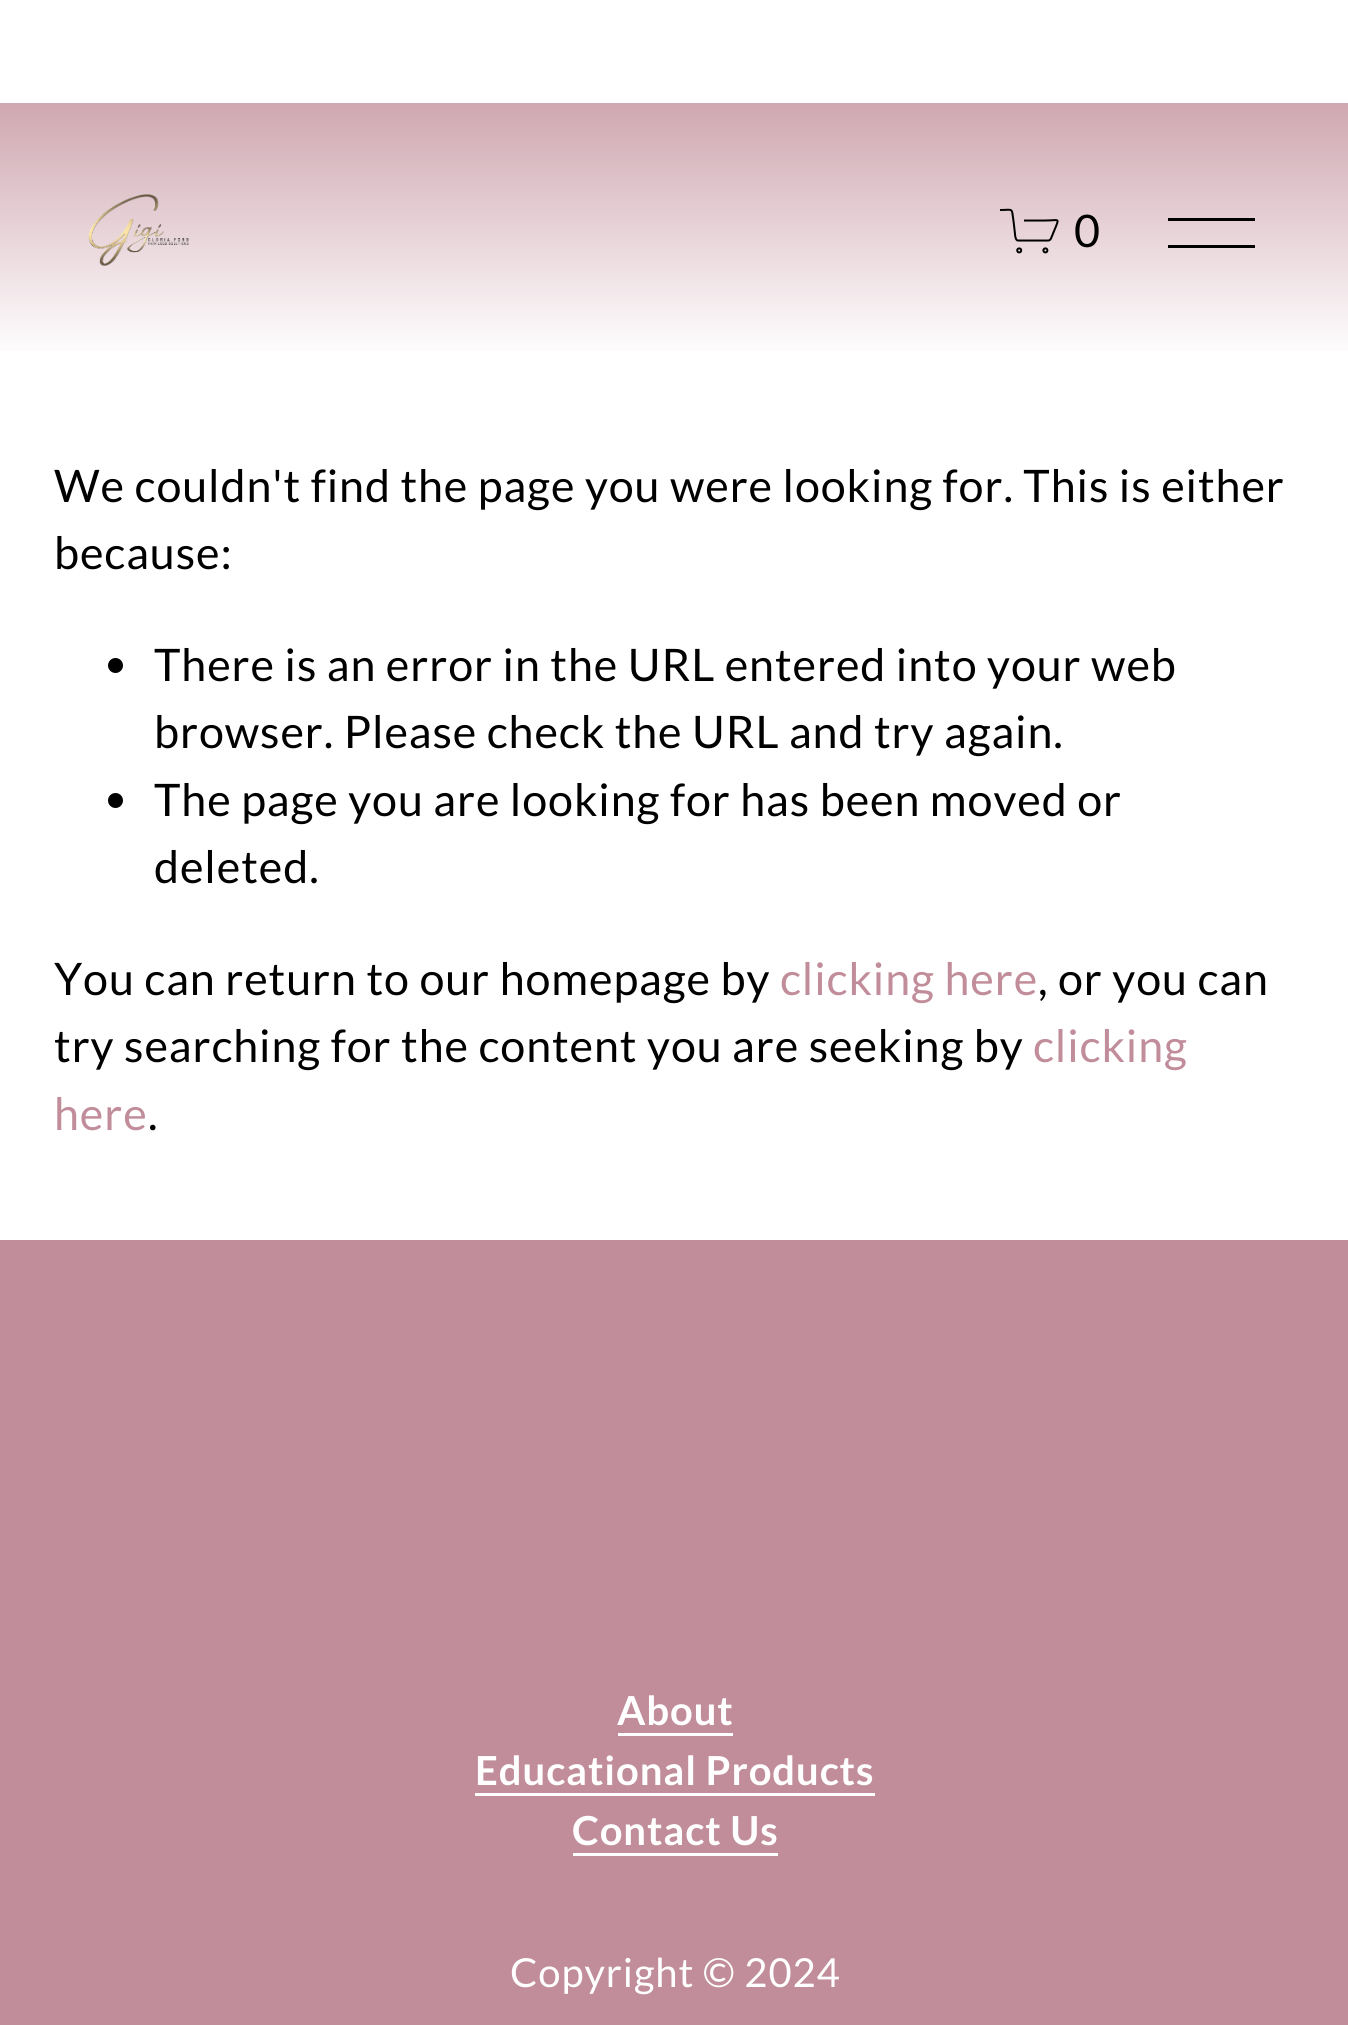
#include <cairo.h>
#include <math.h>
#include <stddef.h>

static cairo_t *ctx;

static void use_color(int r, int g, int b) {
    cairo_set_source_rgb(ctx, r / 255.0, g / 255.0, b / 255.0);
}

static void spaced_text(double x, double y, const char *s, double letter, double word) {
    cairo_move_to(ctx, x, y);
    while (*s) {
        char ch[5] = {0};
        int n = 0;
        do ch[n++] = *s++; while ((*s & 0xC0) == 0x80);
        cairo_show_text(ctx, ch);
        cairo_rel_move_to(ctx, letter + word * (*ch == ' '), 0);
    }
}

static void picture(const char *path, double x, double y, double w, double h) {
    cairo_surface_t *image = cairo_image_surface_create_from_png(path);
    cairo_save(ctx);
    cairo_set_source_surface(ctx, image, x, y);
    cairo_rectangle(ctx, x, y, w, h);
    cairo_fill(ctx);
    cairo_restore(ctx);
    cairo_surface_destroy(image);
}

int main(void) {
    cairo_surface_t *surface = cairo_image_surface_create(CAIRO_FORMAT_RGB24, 1348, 2025);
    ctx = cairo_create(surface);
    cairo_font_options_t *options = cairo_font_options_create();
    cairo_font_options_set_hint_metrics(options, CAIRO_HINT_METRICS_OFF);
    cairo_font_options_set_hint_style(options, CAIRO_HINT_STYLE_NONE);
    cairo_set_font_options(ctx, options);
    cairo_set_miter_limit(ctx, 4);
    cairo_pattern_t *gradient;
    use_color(255, 255, 255);
    cairo_paint(ctx);
    gradient = cairo_pattern_create_linear(675, 102, 675, 358);
    cairo_pattern_add_color_stop_rgba(gradient, 0, 0.812, 0.655, 0.694, 1);
    cairo_pattern_add_color_stop_rgba(gradient, 1, 1, 1, 1, 1);
    cairo_set_source(ctx, gradient);
    cairo_pattern_destroy(gradient);
    cairo_rectangle(ctx, 0, 103, 1348, 248);
    cairo_fill(ctx);
    picture("img1.png", 88, 194, 101, 72);
    cairo_arc(ctx, 1045.4, 250.4, 2, 0, 2 * M_PI);
    use_color(0, 0, 0);
    cairo_stroke(ctx);
    cairo_arc(ctx, 1019.2, 250.4, 2, 0, 2 * M_PI);
    cairo_stroke(ctx);
    cairo_new_path(ctx);
    cairo_move_to(ctx, 1000, 210);
    cairo_curve_to(ctx, 1013.5, 210, 1011.5, 207, 1013.5, 221);
    cairo_line_to(ctx, 1014.5, 229.5);
    cairo_curve_to(ctx, 1015, 231, 1014.5, 240.5, 1018, 240.5);
    cairo_line_to(ctx, 1043, 240.5);
    cairo_curve_to(ctx, 1049.5, 240.5, 1050, 241.5, 1052, 236);
    cairo_line_to(ctx, 1055.5, 227.5);
    cairo_curve_to(ctx, 1059.5, 217.5, 1058.5, 220.5, 1045.5, 220.5);
    cairo_line_to(ctx, 1024, 220.5);
    cairo_stroke(ctx);
    cairo_select_font_face(ctx, "Lato", CAIRO_FONT_SLANT_NORMAL, CAIRO_FONT_WEIGHT_NORMAL);
    cairo_set_font_size(ctx, 44.85);
    spaced_text(1074, 247, "0", 0.9, 0);
    cairo_rectangle(ctx, 1168, 218, 87, 3);
    cairo_fill(ctx);
    cairo_rectangle(ctx, 1168, 245, 87, 3);
    cairo_fill(ctx);
    spaced_text(54, 502, "We couldn't find the page you were looking for. This is either", 0.9, 0);
    spaced_text(54, 569, "because:", 0.9, 0);
    cairo_new_path(ctx);
    cairo_arc(ctx, 115.5, 665.5, 7.5, 0, 2 * M_PI);
    cairo_fill(ctx);
    spaced_text(154, 681, "There is an error in the URL entered into your web", 0.9, 0);
    spaced_text(154, 748, "browser. Please check the URL and try again.", 0.9, 0);
    cairo_new_path(ctx);
    cairo_arc(ctx, 115.5, 800.5, 7.5, 0, 2 * M_PI);
    cairo_fill(ctx);
    spaced_text(154, 816, "The page you are looking for has been moved or", 0.9, 0);
    spaced_text(154, 883, "deleted.", 0.9, 0);
    spaced_text(54, 995, "You can return to our homepage by", 0.9, 0);
    use_color(193, 141, 154);
    spaced_text(780, 995, "clicking here", 0.9, 0);
    use_color(0, 0, 0);
    spaced_text(1038, 995, ", or you can", 0.9, 0);
    spaced_text(54, 1062, "try searching for the content you are seeking by", 0.9, 0);
    use_color(193, 141, 154);
    spaced_text(1033, 1062, "clicking", 0.9, 0);
    spaced_text(54, 1130, "here", 0.9, 0);
    use_color(0, 0, 0);
    spaced_text(148, 1130, ".", 0.9, 0);
    use_color(193, 141, 154);
    cairo_rectangle(ctx, 0, 1240, 1348, 785);
    cairo_fill(ctx);
    cairo_select_font_face(ctx, "Lato", CAIRO_FONT_SLANT_NORMAL, CAIRO_FONT_WEIGHT_BOLD);
    cairo_set_font_size(ctx, 40);
    use_color(255, 255, 255);
    spaced_text(617, 1725, "About", 0.9, 0);
    cairo_rectangle(ctx, 618, 1733, 115, 3);
    cairo_fill(ctx);
    spaced_text(475, 1785, "Educational Products", 0.9, 0);
    cairo_rectangle(ctx, 475, 1793, 400, 3);
    cairo_fill(ctx);
    spaced_text(572, 1845, "Contact Us", 0.9, 0);
    cairo_rectangle(ctx, 573, 1853, 205, 3);
    cairo_fill(ctx);
    cairo_select_font_face(ctx, "Lato", CAIRO_FONT_SLANT_NORMAL, CAIRO_FONT_WEIGHT_NORMAL);
    spaced_text(510, 1987, "Copyright © 2024", 0.9, 0);
    cairo_surface_write_to_png(surface, "result.png");
    cairo_font_options_destroy(options);
    cairo_destroy(ctx);
    cairo_surface_destroy(surface);
    return 0;
}
